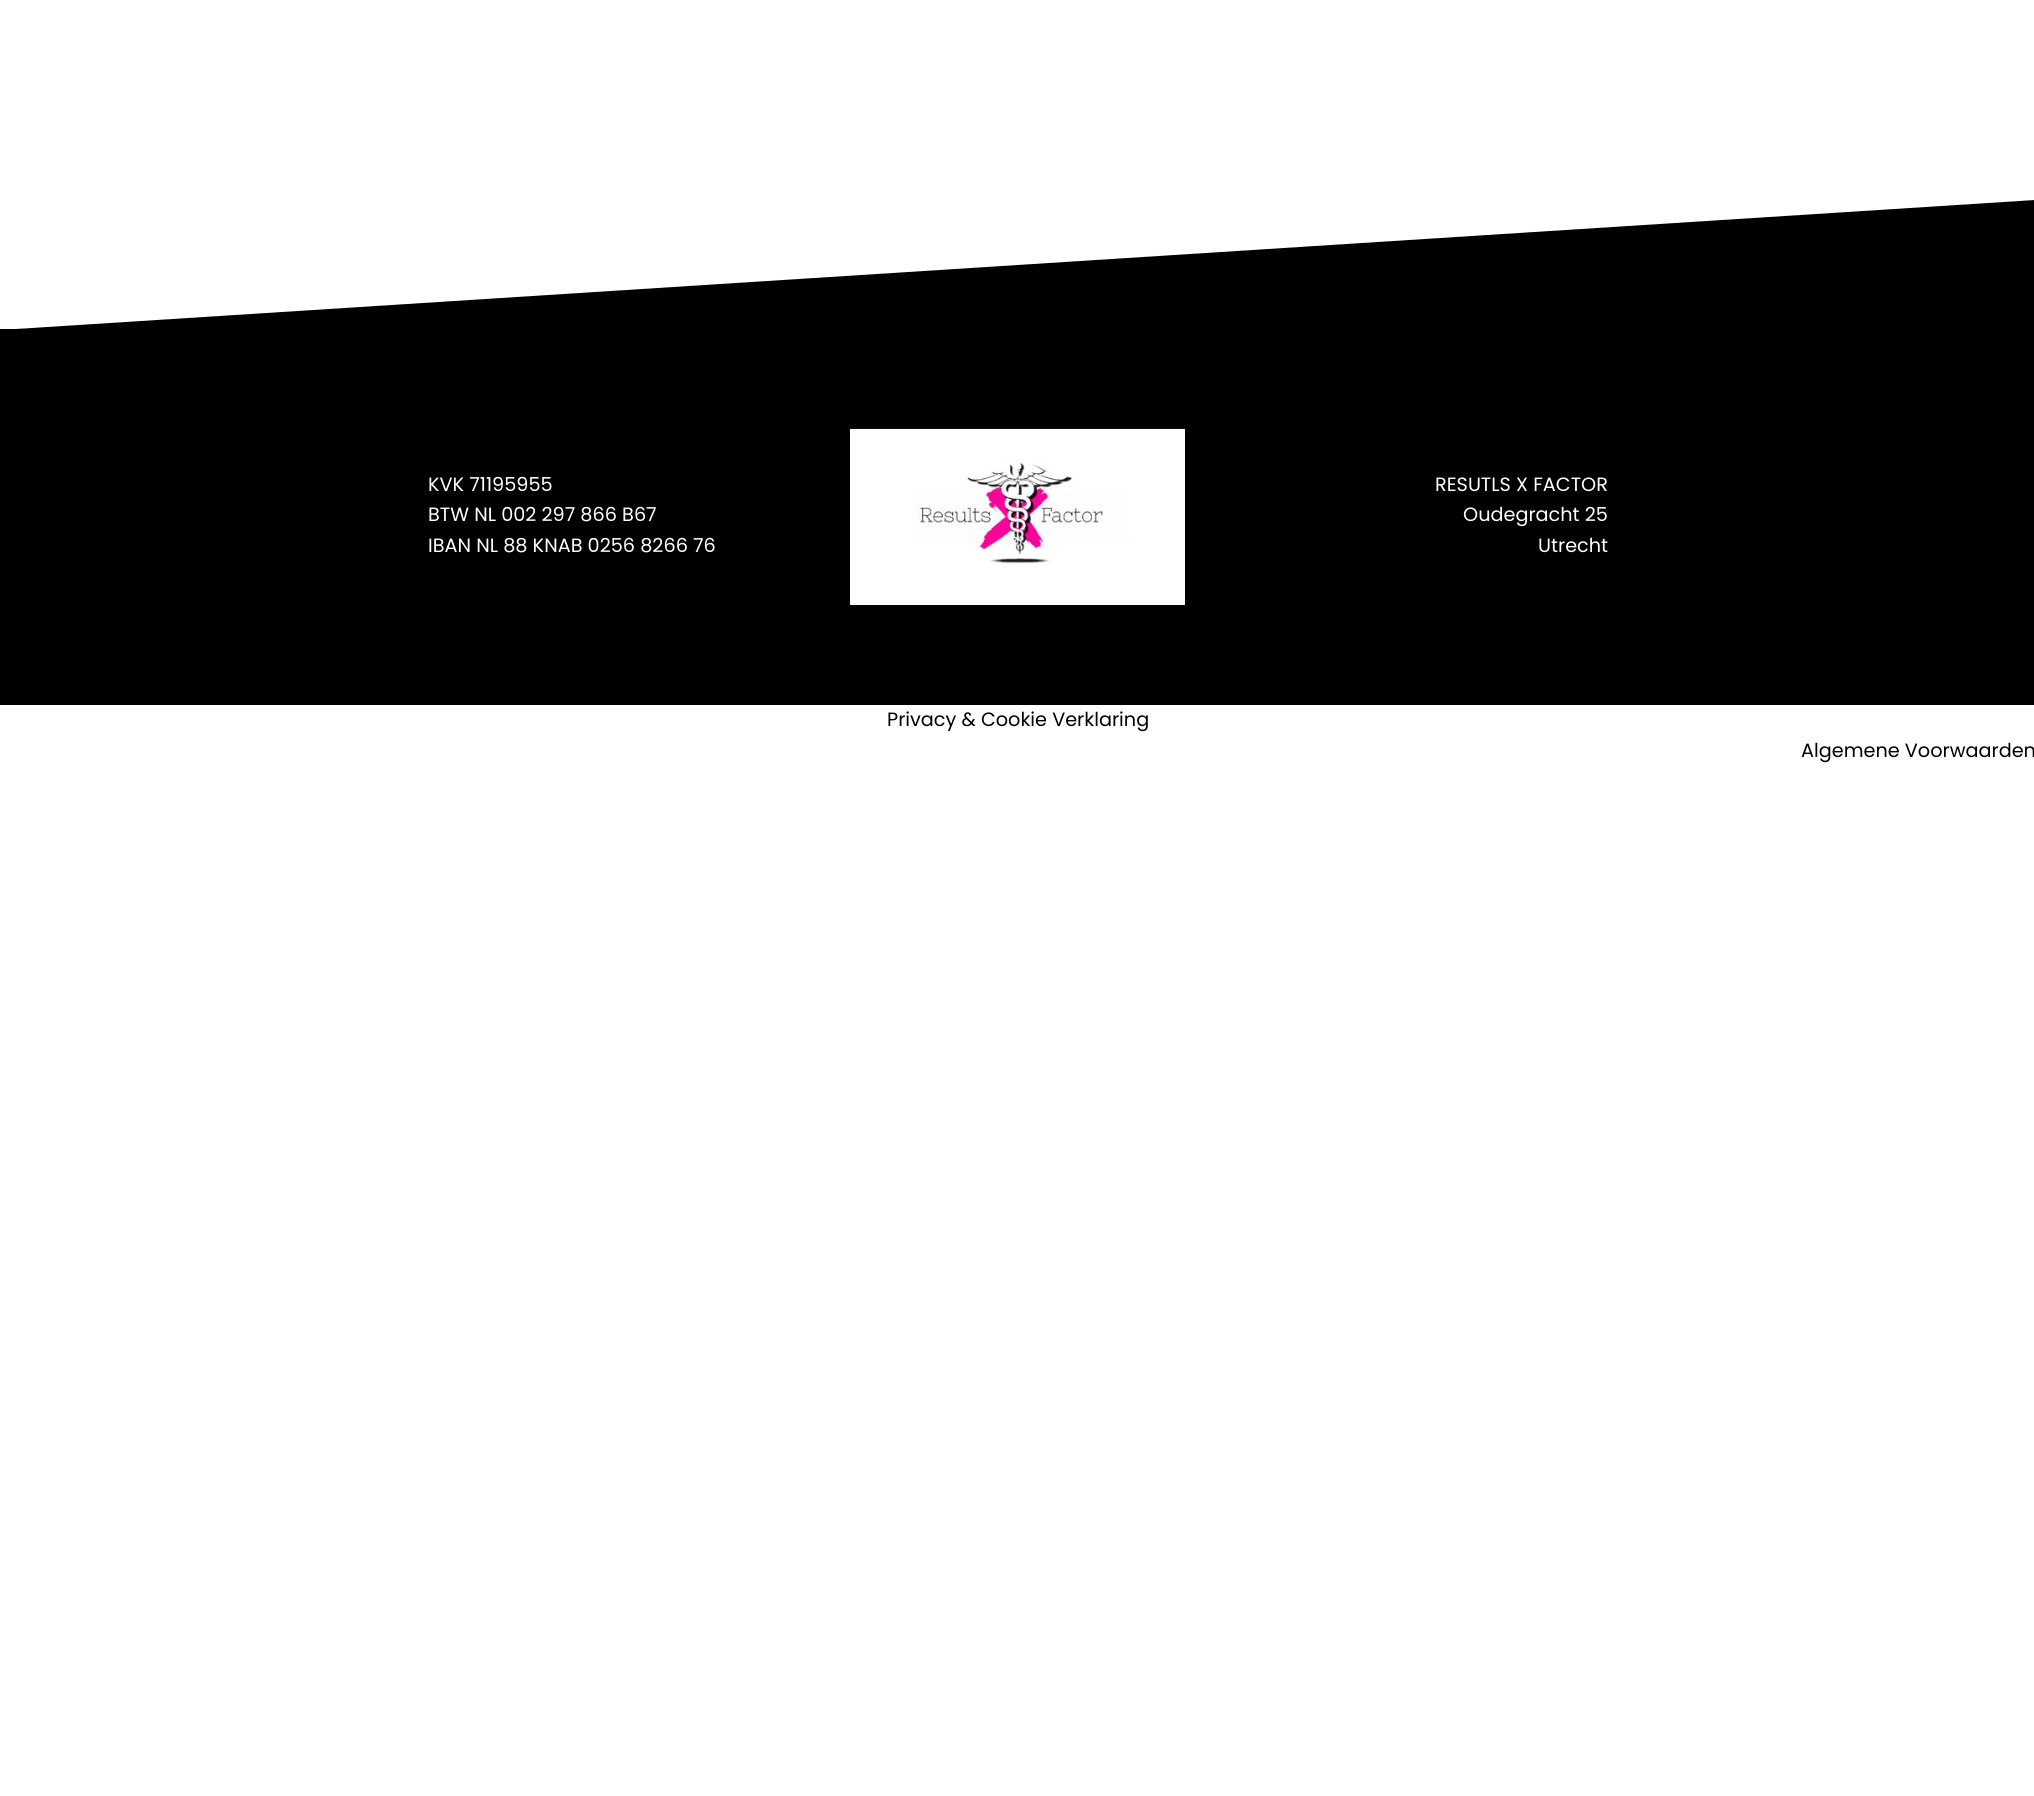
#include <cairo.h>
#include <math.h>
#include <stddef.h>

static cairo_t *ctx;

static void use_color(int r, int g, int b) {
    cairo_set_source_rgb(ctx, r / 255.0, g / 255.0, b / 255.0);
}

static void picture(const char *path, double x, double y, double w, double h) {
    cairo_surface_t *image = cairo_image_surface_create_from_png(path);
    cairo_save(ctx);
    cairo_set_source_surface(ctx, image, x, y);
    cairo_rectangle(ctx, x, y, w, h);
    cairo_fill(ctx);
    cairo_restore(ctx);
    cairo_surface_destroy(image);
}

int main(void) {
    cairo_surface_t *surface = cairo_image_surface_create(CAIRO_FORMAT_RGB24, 2034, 1796);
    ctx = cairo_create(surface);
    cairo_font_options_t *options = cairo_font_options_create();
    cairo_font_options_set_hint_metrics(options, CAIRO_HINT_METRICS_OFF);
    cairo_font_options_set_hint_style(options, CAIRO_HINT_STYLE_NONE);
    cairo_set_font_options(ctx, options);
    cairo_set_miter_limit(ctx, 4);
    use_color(255, 255, 255);
    cairo_paint(ctx);
    use_color(0, 0, 0);
    cairo_new_path(ctx);
    cairo_move_to(ctx, 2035, 200);
    cairo_line_to(ctx, 0, 330);
    cairo_line_to(ctx, 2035, 330);
    cairo_close_path(ctx);
    cairo_fill(ctx);
    cairo_rectangle(ctx, 0, 329, 2034, 376);
    cairo_fill(ctx);
    cairo_select_font_face(ctx, "Poppins", CAIRO_FONT_SLANT_NORMAL, CAIRO_FONT_WEIGHT_NORMAL);
    cairo_set_font_size(ctx, 19.25);
    use_color(255, 255, 255);
    cairo_move_to(ctx, 428, 491);
    cairo_show_text(ctx, "KVK 71195955");
    cairo_move_to(ctx, 428, 521);
    cairo_show_text(ctx, "BTW NL 002 297 866 B67");
    cairo_move_to(ctx, 428, 552);
    cairo_show_text(ctx, "IBAN NL 88 KNAB 0256 8266 76");
    picture("img1.png", 850, 428, 335, 177);
    cairo_move_to(ctx, 1435, 491);
    cairo_show_text(ctx, "RESUTLS X FACTOR");
    cairo_move_to(ctx, 1463, 521);
    cairo_show_text(ctx, "Oudegracht 25");
    cairo_move_to(ctx, 1538, 552);
    cairo_show_text(ctx, "Utrecht");
    use_color(0, 0, 0);
    cairo_move_to(ctx, 887, 726);
    cairo_show_text(ctx, "Privacy & Cookie Verklaring");
    cairo_move_to(ctx, 1801, 757);
    cairo_show_text(ctx, "Algemene Voorwaarden");
    cairo_surface_write_to_png(surface, "result.png");
    cairo_font_options_destroy(options);
    cairo_destroy(ctx);
    cairo_surface_destroy(surface);
    return 0;
}
